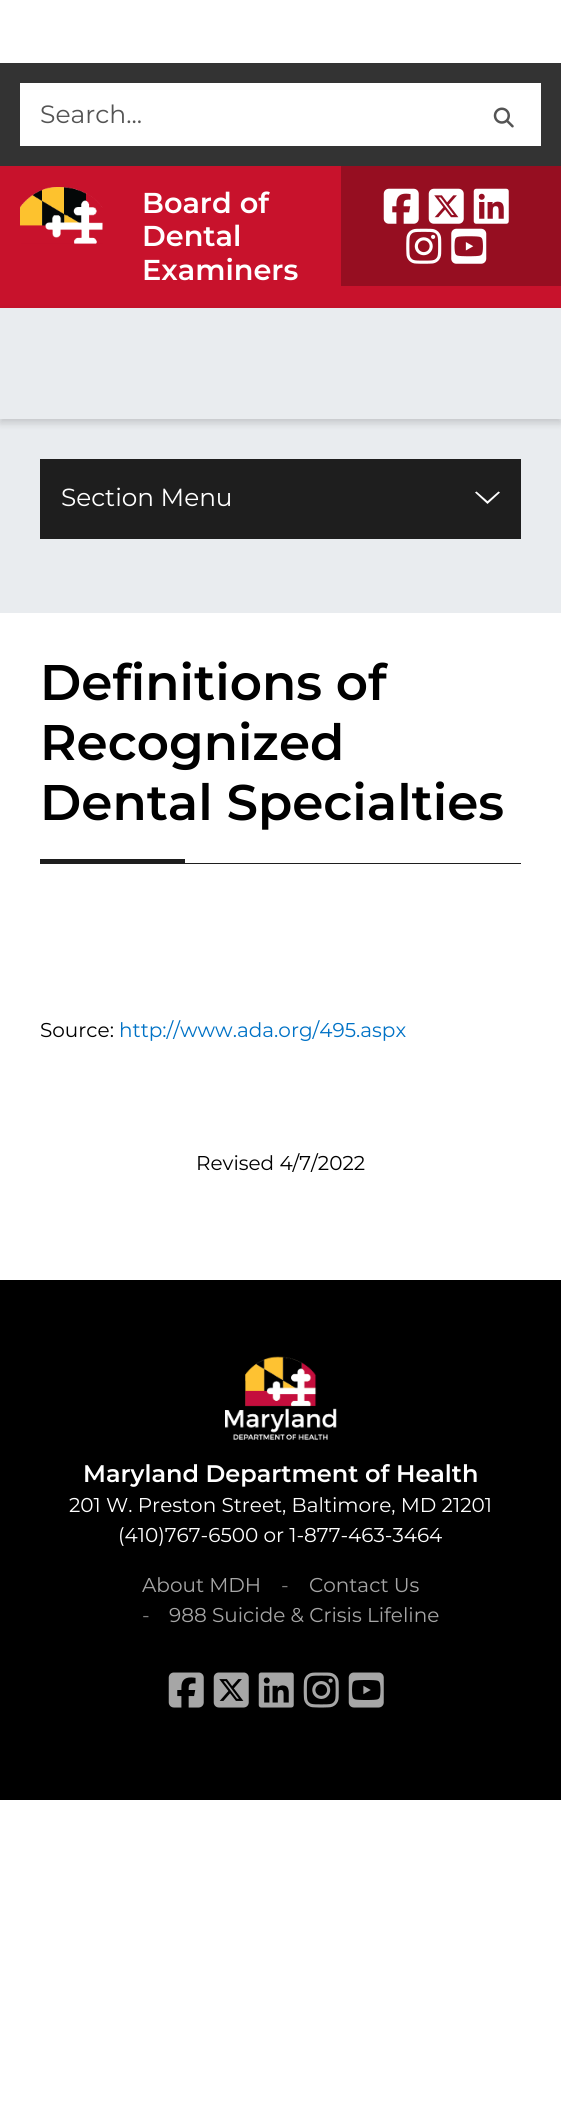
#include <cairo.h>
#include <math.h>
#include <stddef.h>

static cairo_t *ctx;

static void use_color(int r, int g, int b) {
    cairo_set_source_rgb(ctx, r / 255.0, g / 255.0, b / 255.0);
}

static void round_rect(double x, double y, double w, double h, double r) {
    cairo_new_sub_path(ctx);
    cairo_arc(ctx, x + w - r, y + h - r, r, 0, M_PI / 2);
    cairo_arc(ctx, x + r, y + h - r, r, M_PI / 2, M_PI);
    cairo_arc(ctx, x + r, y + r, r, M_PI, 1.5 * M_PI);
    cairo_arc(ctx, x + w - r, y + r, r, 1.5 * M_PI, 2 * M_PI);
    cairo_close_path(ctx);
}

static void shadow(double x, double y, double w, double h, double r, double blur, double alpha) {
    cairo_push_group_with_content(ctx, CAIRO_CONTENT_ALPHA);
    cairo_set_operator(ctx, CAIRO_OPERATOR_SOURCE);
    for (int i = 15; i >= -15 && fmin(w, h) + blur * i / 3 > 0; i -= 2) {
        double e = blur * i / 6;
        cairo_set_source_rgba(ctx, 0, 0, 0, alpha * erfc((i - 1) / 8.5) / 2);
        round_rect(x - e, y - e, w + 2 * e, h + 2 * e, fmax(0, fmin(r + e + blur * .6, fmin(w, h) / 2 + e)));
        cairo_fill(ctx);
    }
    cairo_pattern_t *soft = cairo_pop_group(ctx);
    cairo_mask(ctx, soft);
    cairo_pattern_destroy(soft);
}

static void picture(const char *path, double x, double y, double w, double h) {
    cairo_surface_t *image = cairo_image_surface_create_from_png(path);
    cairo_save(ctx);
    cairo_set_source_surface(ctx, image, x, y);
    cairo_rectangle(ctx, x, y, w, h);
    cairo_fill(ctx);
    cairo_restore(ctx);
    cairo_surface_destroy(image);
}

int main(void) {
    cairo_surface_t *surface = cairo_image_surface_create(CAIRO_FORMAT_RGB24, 561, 2102);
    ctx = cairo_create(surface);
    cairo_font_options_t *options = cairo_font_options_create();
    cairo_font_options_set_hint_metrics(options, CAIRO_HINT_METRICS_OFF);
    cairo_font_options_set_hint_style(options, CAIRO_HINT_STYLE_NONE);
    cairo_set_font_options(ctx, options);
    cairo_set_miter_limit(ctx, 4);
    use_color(255, 255, 255);
    cairo_paint(ctx);
    use_color(51, 51, 51);
    cairo_rectangle(ctx, 0, 63, 561, 103);
    cairo_fill(ctx);
    use_color(255, 255, 255);
    cairo_rectangle(ctx, 20, 83, 521, 63);
    cairo_fill(ctx);
    cairo_select_font_face(ctx, "Montserrat Thin", CAIRO_FONT_SLANT_NORMAL, CAIRO_FONT_WEIGHT_NORMAL);
    cairo_set_font_size(ctx, 25);
    use_color(84, 84, 84);
    cairo_move_to(ctx, 40, 123);
    cairo_show_text(ctx, "Search...");
    picture("img1.png", 493, 107, 21, 21);
    use_color(200, 18, 44);
    cairo_rectangle(ctx, 0, 166, 561, 142);
    cairo_fill(ctx);
    picture("img2.png", 20, 187, 83, 57);
    cairo_select_font_face(ctx, "Montserrat SemiBold", CAIRO_FONT_SLANT_NORMAL, CAIRO_FONT_WEIGHT_NORMAL);
    cairo_set_font_size(ctx, 28.75);
    use_color(255, 255, 255);
    cairo_move_to(ctx, 142, 213);
    cairo_show_text(ctx, "Board of");
    cairo_move_to(ctx, 142, 246);
    cairo_show_text(ctx, "Dental");
    cairo_move_to(ctx, 142, 280);
    cairo_show_text(ctx, "Examiners");
    use_color(150, 14, 33);
    cairo_rectangle(ctx, 341, 166, 220, 120);
    cairo_fill(ctx);
    picture("img3.png", 383, 188, 36, 36);
    picture("img4.png", 428, 188, 36, 36);
    picture("img5.png", 473, 188, 36, 36);
    picture("img6.png", 406, 228, 36, 36);
    picture("img7.png", 451, 228, 36, 36);
    use_color(233, 236, 239);
    cairo_rectangle(ctx, 0, 419, 561, 194);
    cairo_fill(ctx);
    use_color(0, 0, 0);
    shadow(0, 311, 561, 112, 0, 4, 0.16);
    use_color(233, 236, 239);
    cairo_rectangle(ctx, 0, 308, 561, 111);
    cairo_fill(ctx);
    use_color(30, 30, 30);
    cairo_rectangle(ctx, 40, 459, 481, 80);
    cairo_fill(ctx);
    cairo_select_font_face(ctx, "Montserrat Thin", CAIRO_FONT_SLANT_NORMAL, CAIRO_FONT_WEIGHT_NORMAL);
    cairo_set_font_size(ctx, 24.75);
    use_color(255, 255, 255);
    cairo_move_to(ctx, 61, 506);
    cairo_show_text(ctx, "Section Menu");
    cairo_new_path(ctx);
    cairo_move_to(ctx, 487.5, 504);
    cairo_line_to(ctx, 489, 502.5);
    cairo_line_to(ctx, 476.5, 491.5);
    cairo_line_to(ctx, 475, 492.5);
    cairo_close_path(ctx);
    cairo_move_to(ctx, 486, 502.5);
    cairo_line_to(ctx, 487.5, 504);
    cairo_line_to(ctx, 500, 492.5);
    cairo_line_to(ctx, 498.5, 491.5);
    cairo_close_path(ctx);
    cairo_fill(ctx);
    use_color(30, 30, 30);
    cairo_rectangle(ctx, 40, 863, 481, 1);
    cairo_fill(ctx);
    cairo_select_font_face(ctx, "Montserrat SemiBold", CAIRO_FONT_SLANT_NORMAL, CAIRO_FONT_WEIGHT_NORMAL);
    cairo_set_font_size(ctx, 50);
    use_color(0, 0, 0);
    cairo_move_to(ctx, 40, 700);
    cairo_show_text(ctx, "Definitions of");
    cairo_move_to(ctx, 40, 760);
    cairo_show_text(ctx, "Recognized");
    cairo_move_to(ctx, 40, 820);
    cairo_show_text(ctx, "Dental Specialties");
    use_color(30, 30, 30);
    cairo_rectangle(ctx, 40, 859, 145, 4);
    cairo_fill(ctx);
    cairo_select_font_face(ctx, "Montserrat Thin", CAIRO_FONT_SLANT_NORMAL, CAIRO_FONT_WEIGHT_NORMAL);
    cairo_set_font_size(ctx, 20);
    use_color(0, 0, 0);
    cairo_move_to(ctx, 40, 1037);
    cairo_show_text(ctx, "Source:");
    use_color(0, 114, 198);
    cairo_move_to(ctx, 119, 1037);
    cairo_show_text(ctx, "http://www.ada.org/495.aspx");
    use_color(0, 0, 0);
    cairo_move_to(ctx, 196, 1170);
    cairo_show_text(ctx, "Revised 4/7/2022");
    cairo_rectangle(ctx, 0, 1280, 561, 520);
    cairo_fill(ctx);
    picture("img8.png", 225, 1356, 112, 84);
    cairo_select_font_face(ctx, "Montserrat SemiBold", CAIRO_FONT_SLANT_NORMAL, CAIRO_FONT_WEIGHT_NORMAL);
    cairo_set_font_size(ctx, 24);
    use_color(255, 255, 255);
    cairo_move_to(ctx, 83, 1482);
    cairo_show_text(ctx, "Maryland Department of Health");
    cairo_select_font_face(ctx, "Montserrat Thin", CAIRO_FONT_SLANT_NORMAL, CAIRO_FONT_WEIGHT_NORMAL);
    cairo_set_font_size(ctx, 20);
    cairo_move_to(ctx, 69, 1512);
    cairo_show_text(ctx, "201 W. Preston Street, Baltimore, MD 21201");
    cairo_move_to(ctx, 118, 1542);
    cairo_show_text(ctx, "(410)767-6500 or 1-877-463-3464");
    use_color(166, 166, 166);
    cairo_move_to(ctx, 142, 1592);
    cairo_show_text(ctx, "About MDH");
    use_color(128, 128, 128);
    cairo_move_to(ctx, 281, 1592);
    cairo_show_text(ctx, "-");
    use_color(166, 166, 166);
    cairo_move_to(ctx, 309, 1592);
    cairo_show_text(ctx, "Contact Us");
    use_color(128, 128, 128);
    cairo_move_to(ctx, 142, 1622);
    cairo_show_text(ctx, "-");
    use_color(166, 166, 166);
    cairo_move_to(ctx, 169, 1622);
    cairo_show_text(ctx, "988 Suicide & Crisis Lifeline");
    picture("img9.png", 168, 1672, 36, 36);
    picture("img10.png", 213, 1672, 36, 36);
    picture("img11.png", 258, 1672, 36, 36);
    picture("img12.png", 303, 1672, 36, 36);
    picture("img13.png", 348, 1672, 36, 36);
    cairo_surface_write_to_png(surface, "result.png");
    cairo_font_options_destroy(options);
    cairo_destroy(ctx);
    cairo_surface_destroy(surface);
    return 0;
}
